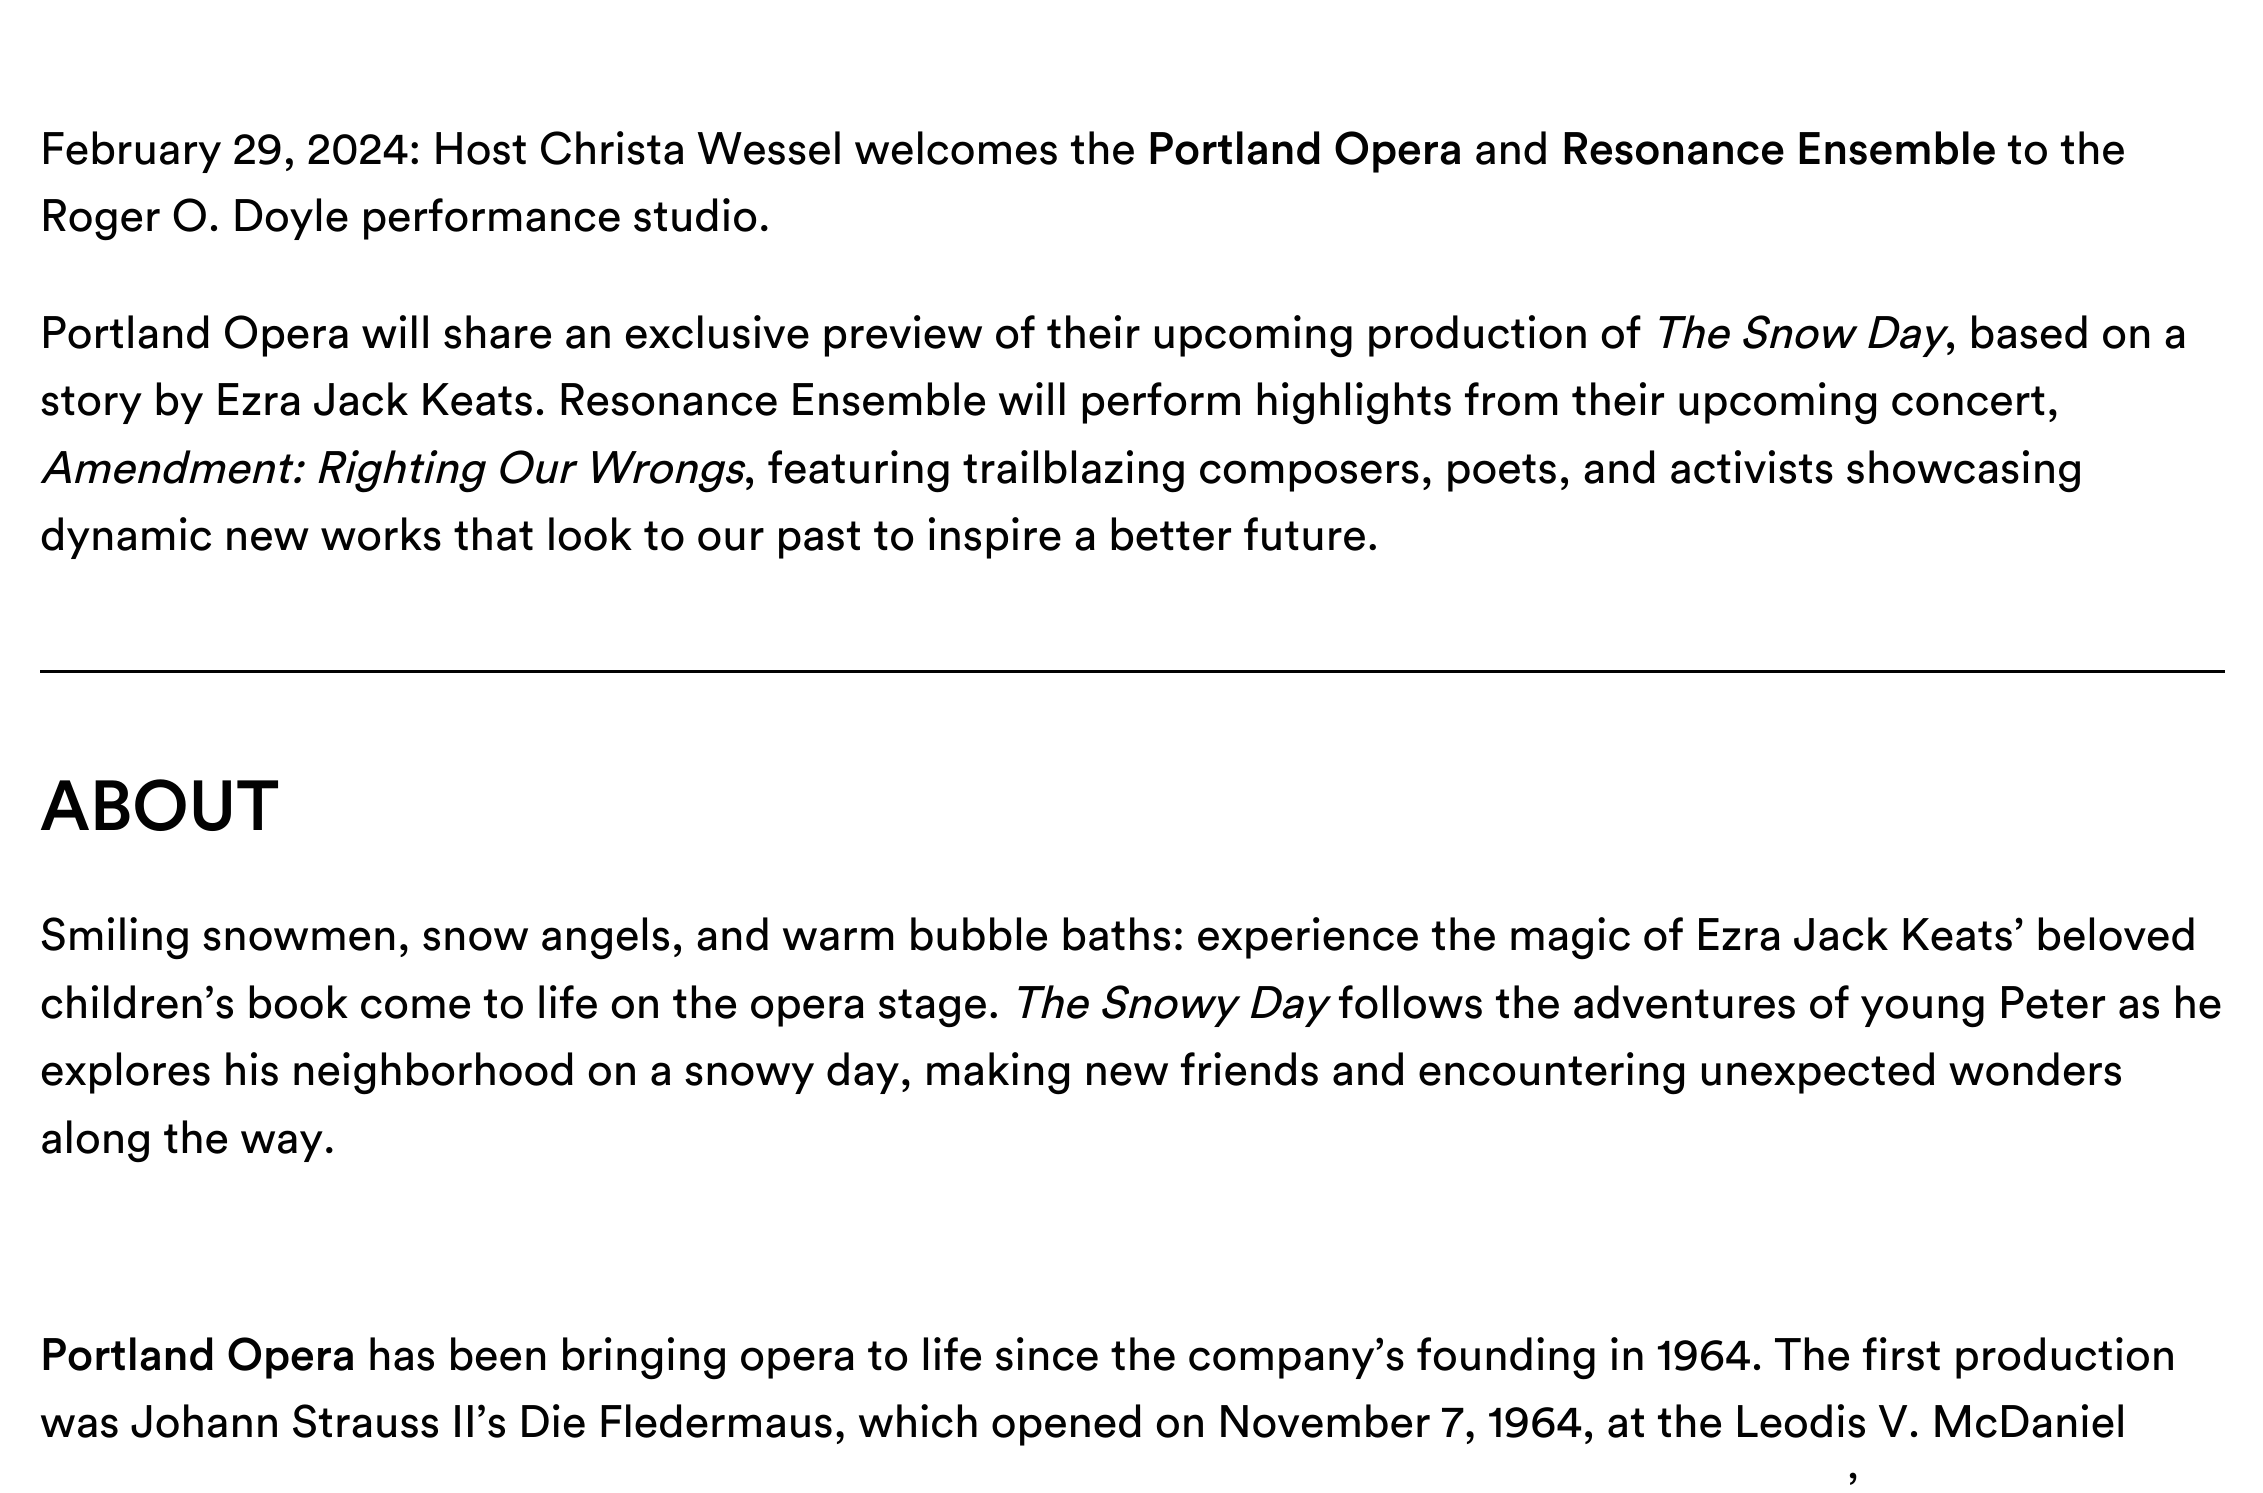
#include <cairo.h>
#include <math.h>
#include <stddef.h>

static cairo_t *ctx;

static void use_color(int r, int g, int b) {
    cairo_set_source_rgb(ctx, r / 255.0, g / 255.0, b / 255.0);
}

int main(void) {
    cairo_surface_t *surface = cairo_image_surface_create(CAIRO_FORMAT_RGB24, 2263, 1493);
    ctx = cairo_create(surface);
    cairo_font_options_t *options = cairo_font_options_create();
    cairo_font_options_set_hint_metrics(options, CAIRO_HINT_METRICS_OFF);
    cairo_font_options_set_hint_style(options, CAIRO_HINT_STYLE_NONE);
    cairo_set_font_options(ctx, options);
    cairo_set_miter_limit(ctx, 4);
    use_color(255, 255, 255);
    cairo_paint(ctx);
    cairo_select_font_face(ctx, "Circular", CAIRO_FONT_SLANT_NORMAL, CAIRO_FONT_WEIGHT_NORMAL);
    cairo_set_font_size(ctx, 45);
    use_color(2, 2, 2);
    cairo_move_to(ctx, 40, 164);
    cairo_show_text(ctx, "February 29, 2024: Host Christa Wessel welcomes the");
    cairo_select_font_face(ctx, "Circular Medium", CAIRO_FONT_SLANT_NORMAL, CAIRO_FONT_WEIGHT_NORMAL);
    cairo_move_to(ctx, 1147, 164);
    cairo_show_text(ctx, "Portland Opera");
    cairo_select_font_face(ctx, "Circular", CAIRO_FONT_SLANT_NORMAL, CAIRO_FONT_WEIGHT_NORMAL);
    cairo_move_to(ctx, 1474, 164);
    cairo_show_text(ctx, "and");
    cairo_select_font_face(ctx, "Circular Medium", CAIRO_FONT_SLANT_NORMAL, CAIRO_FONT_WEIGHT_NORMAL);
    cairo_move_to(ctx, 1561, 164);
    cairo_show_text(ctx, "Resonance Ensemble");
    cairo_select_font_face(ctx, "Circular", CAIRO_FONT_SLANT_NORMAL, CAIRO_FONT_WEIGHT_NORMAL);
    cairo_move_to(ctx, 2007, 164);
    cairo_show_text(ctx, "to the");
    cairo_move_to(ctx, 40, 231);
    cairo_show_text(ctx, "Roger O. Doyle performance studio.");
    cairo_move_to(ctx, 40, 348);
    cairo_show_text(ctx, "Portland Opera will share an exclusive preview of their upcoming production of");
    cairo_select_font_face(ctx, "Circular", CAIRO_FONT_SLANT_ITALIC, CAIRO_FONT_WEIGHT_NORMAL);
    cairo_move_to(ctx, 1652, 348);
    cairo_show_text(ctx, "The Snow Day");
    cairo_select_font_face(ctx, "Circular", CAIRO_FONT_SLANT_NORMAL, CAIRO_FONT_WEIGHT_NORMAL);
    cairo_move_to(ctx, 1944, 348);
    cairo_show_text(ctx, ", based on a");
    cairo_move_to(ctx, 40, 415);
    cairo_show_text(ctx, "story by Ezra Jack Keats. Resonance Ensemble will perform highlights from their upcoming concert,");
    cairo_select_font_face(ctx, "Circular", CAIRO_FONT_SLANT_ITALIC, CAIRO_FONT_WEIGHT_NORMAL);
    cairo_move_to(ctx, 40, 483);
    cairo_show_text(ctx, "Amendment: Righting Our Wrongs");
    cairo_select_font_face(ctx, "Circular", CAIRO_FONT_SLANT_NORMAL, CAIRO_FONT_WEIGHT_NORMAL);
    cairo_move_to(ctx, 743, 483);
    cairo_show_text(ctx, ", featuring trailblazing composers, poets, and activists showcasing");
    cairo_move_to(ctx, 40, 550);
    cairo_show_text(ctx, "dynamic new works that look to our past to inspire a better future.");
    cairo_rectangle(ctx, 40, 670, 2185, 3);
    cairo_fill(ctx);
    cairo_select_font_face(ctx, "Circular Medium", CAIRO_FONT_SLANT_NORMAL, CAIRO_FONT_WEIGHT_NORMAL);
    cairo_set_font_size(ctx, 70);
    cairo_move_to(ctx, 40, 830);
    cairo_show_text(ctx, "ABOUT");
    cairo_select_font_face(ctx, "Circular", CAIRO_FONT_SLANT_NORMAL, CAIRO_FONT_WEIGHT_NORMAL);
    cairo_set_font_size(ctx, 45);
    cairo_move_to(ctx, 40, 950);
    cairo_show_text(ctx, "Smiling snowmen, snow angels, and warm bubble baths: experience the magic of Ezra Jack Keats’ beloved");
    cairo_move_to(ctx, 40, 1018);
    cairo_show_text(ctx, "children’s book come to life on the opera stage.");
    cairo_select_font_face(ctx, "Circular", CAIRO_FONT_SLANT_ITALIC, CAIRO_FONT_WEIGHT_NORMAL);
    cairo_move_to(ctx, 1011, 1018);
    cairo_show_text(ctx, "The Snowy Day");
    cairo_select_font_face(ctx, "Circular", CAIRO_FONT_SLANT_NORMAL, CAIRO_FONT_WEIGHT_NORMAL);
    cairo_move_to(ctx, 1338, 1018);
    cairo_show_text(ctx, "follows the adventures of young Peter as he");
    cairo_move_to(ctx, 40, 1085);
    cairo_show_text(ctx, "explores his neighborhood on a snowy day, making new friends and encountering unexpected wonders");
    cairo_move_to(ctx, 40, 1153);
    cairo_show_text(ctx, "along the way.");
    cairo_select_font_face(ctx, "Circular Medium", CAIRO_FONT_SLANT_NORMAL, CAIRO_FONT_WEIGHT_NORMAL);
    cairo_move_to(ctx, 40, 1370);
    cairo_show_text(ctx, "Portland Opera");
    cairo_select_font_face(ctx, "Circular", CAIRO_FONT_SLANT_NORMAL, CAIRO_FONT_WEIGHT_NORMAL);
    cairo_move_to(ctx, 367, 1370);
    cairo_show_text(ctx, "has been bringing opera to life since the company’s founding in 1964. The first production");
    cairo_move_to(ctx, 40, 1437);
    cairo_show_text(ctx, "was Johann Strauss II’s Die Fledermaus, which opened on November 7, 1964, at the Leodis V. McDaniel");
    cairo_move_to(ctx, 1848, 1505);
    cairo_show_text(ctx, "’");
    cairo_surface_write_to_png(surface, "result.png");
    cairo_font_options_destroy(options);
    cairo_destroy(ctx);
    cairo_surface_destroy(surface);
    return 0;
}
